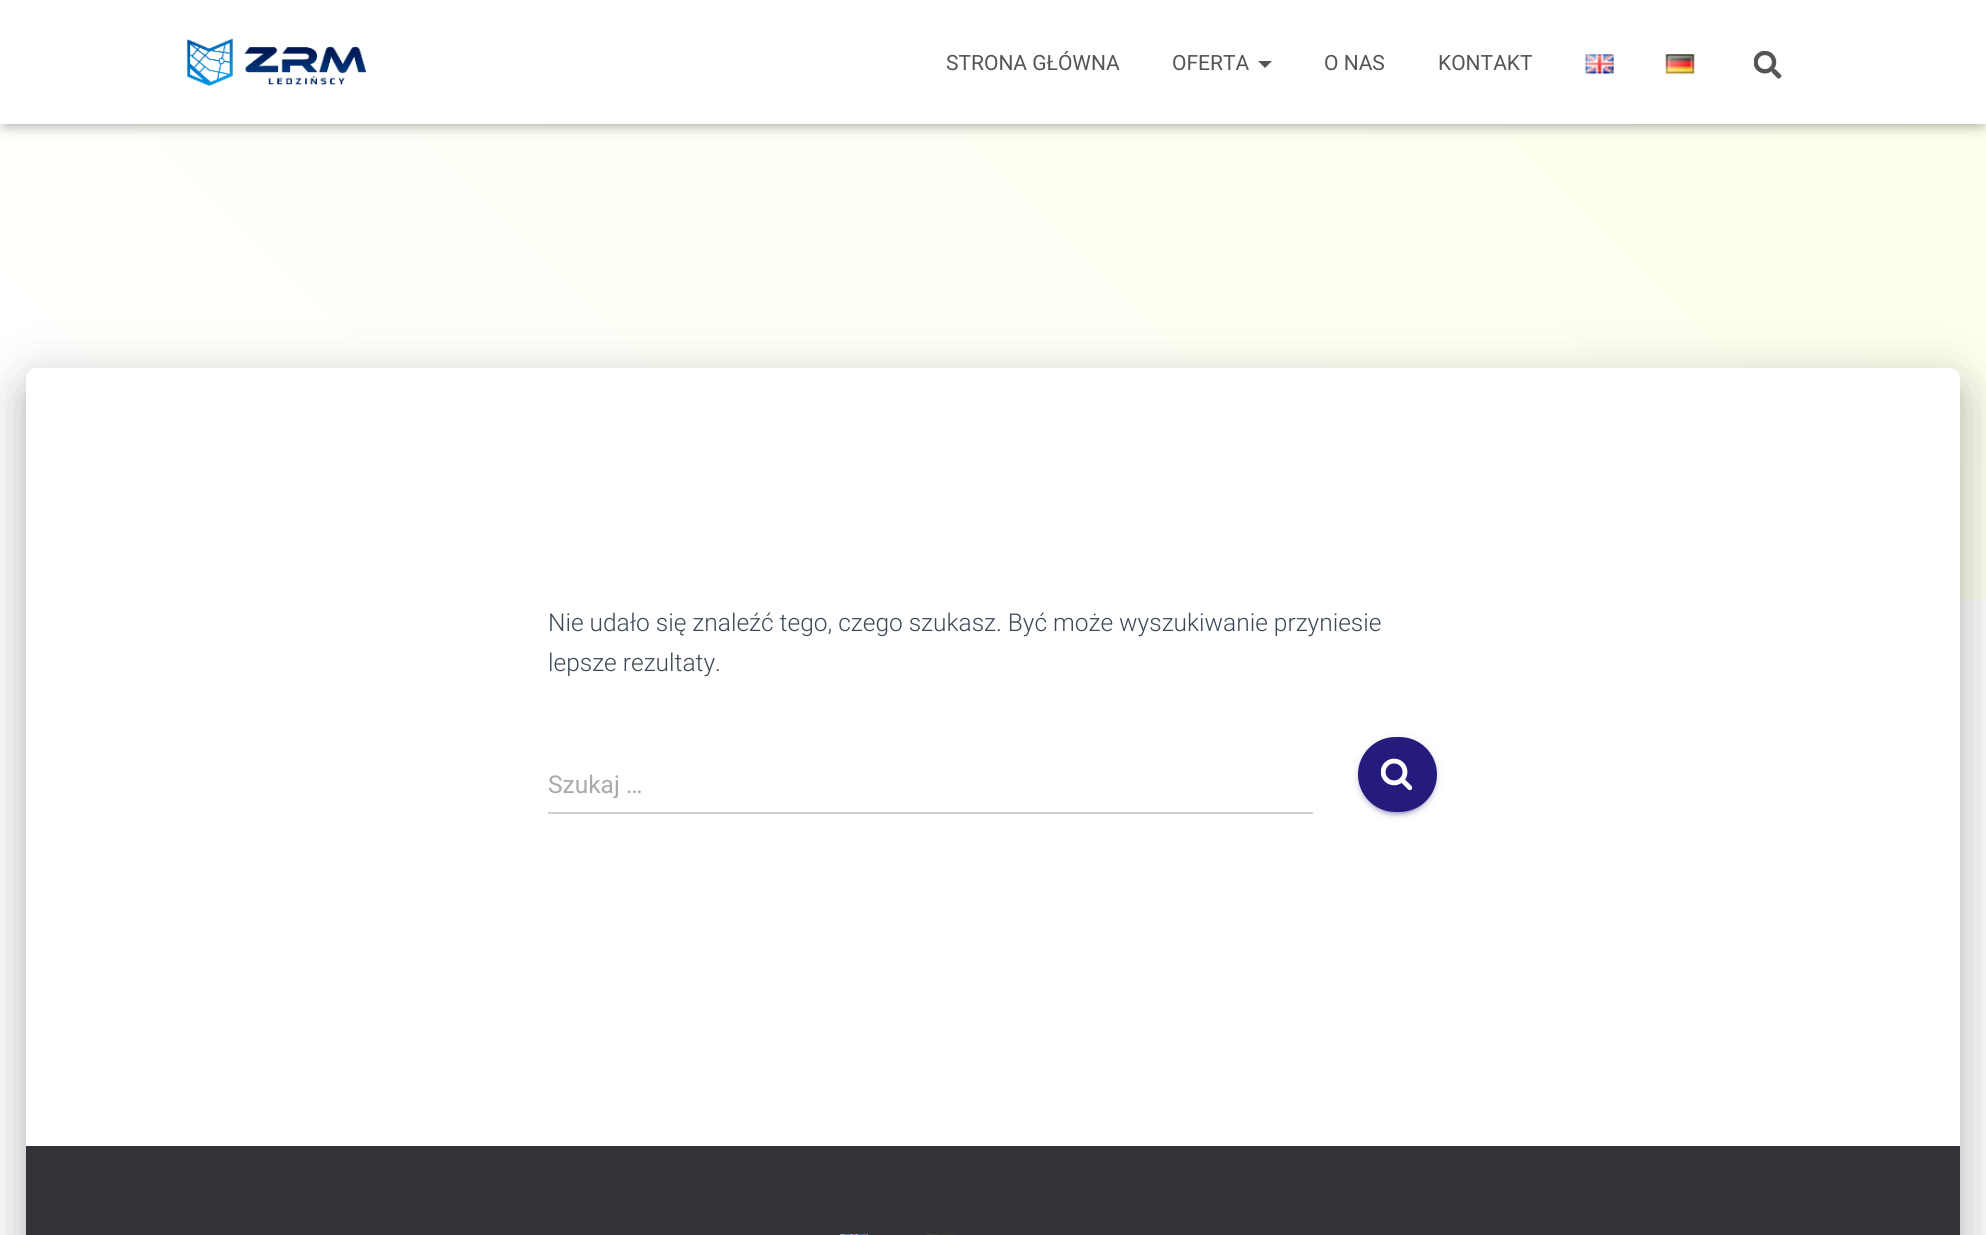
#include <cairo.h>
#include <math.h>
#include <stddef.h>

static cairo_t *ctx;

static void use_color(int r, int g, int b) {
    cairo_set_source_rgb(ctx, r / 255.0, g / 255.0, b / 255.0);
}

static void round_rect(double x, double y, double w, double h, double r) {
    cairo_new_sub_path(ctx);
    cairo_arc(ctx, x + w - r, y + h - r, r, 0, M_PI / 2);
    cairo_arc(ctx, x + r, y + h - r, r, M_PI / 2, M_PI);
    cairo_arc(ctx, x + r, y + r, r, M_PI, 1.5 * M_PI);
    cairo_arc(ctx, x + w - r, y + r, r, 1.5 * M_PI, 2 * M_PI);
    cairo_close_path(ctx);
}

static void shadow(double x, double y, double w, double h, double r, double blur, double alpha) {
    cairo_push_group_with_content(ctx, CAIRO_CONTENT_ALPHA);
    cairo_set_operator(ctx, CAIRO_OPERATOR_SOURCE);
    for (int i = 15; i >= -15 && fmin(w, h) + blur * i / 3 > 0; i -= 2) {
        double e = blur * i / 6;
        cairo_set_source_rgba(ctx, 0, 0, 0, alpha * erfc((i - 1) / 8.5) / 2);
        round_rect(x - e, y - e, w + 2 * e, h + 2 * e, fmax(0, fmin(r + e + blur * .6, fmin(w, h) / 2 + e)));
        cairo_fill(ctx);
    }
    cairo_pattern_t *soft = cairo_pop_group(ctx);
    cairo_mask(ctx, soft);
    cairo_pattern_destroy(soft);
}

static void picture(const char *path, double x, double y, double w, double h) {
    cairo_surface_t *image = cairo_image_surface_create_from_png(path);
    cairo_save(ctx);
    cairo_set_source_surface(ctx, image, x, y);
    cairo_rectangle(ctx, x, y, w, h);
    cairo_fill(ctx);
    cairo_restore(ctx);
    cairo_surface_destroy(image);
}

int main(void) {
    cairo_surface_t *surface = cairo_image_surface_create(CAIRO_FORMAT_RGB24, 1986, 1235);
    ctx = cairo_create(surface);
    cairo_font_options_t *options = cairo_font_options_create();
    cairo_font_options_set_hint_metrics(options, CAIRO_HINT_METRICS_OFF);
    cairo_font_options_set_hint_style(options, CAIRO_HINT_STYLE_NONE);
    cairo_set_font_options(ctx, options);
    cairo_set_miter_limit(ctx, 4);
    cairo_pattern_t *gradient;
    use_color(255, 255, 255);
    cairo_paint(ctx);
    gradient = cairo_pattern_create_linear(283, 883, 1704, -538);
    cairo_pattern_add_color_stop_rgba(gradient, 0, 1, 1, 1, 1);
    cairo_pattern_add_color_stop_rgba(gradient, 1, 1, 1, 0.918, 1);
    cairo_set_source(ctx, gradient);
    cairo_pattern_destroy(gradient);
    cairo_rectangle(ctx, 0, 124, 1986, 476);
    cairo_fill(ctx);
    use_color(0, 0, 0);
    shadow(4, 11, 1979, 117, 0, 4.5, 0.1);
    shadow(0, 2, 1986, 124, 0, 9, 0.12);
    shadow(11, 12, 1965, 104, 0, 9, 0.42);
    use_color(255, 255, 255);
    cairo_rectangle(ctx, 0, 0, 1986, 124);
    cairo_fill(ctx);
    picture("img1.png", 186, 38, 181, 48);
    cairo_select_font_face(ctx, "Roboto", CAIRO_FONT_SLANT_NORMAL, CAIRO_FONT_WEIGHT_NORMAL);
    cairo_set_font_size(ctx, 21);
    use_color(85, 85, 85);
    cairo_move_to(ctx, 946, 70);
    cairo_show_text(ctx, "STRONA GŁÓWNA");
    cairo_move_to(ctx, 1172, 70);
    cairo_show_text(ctx, "OFERTA");
    cairo_new_path(ctx);
    cairo_move_to(ctx, 1258, 61);
    cairo_line_to(ctx, 1272, 61);
    cairo_line_to(ctx, 1265, 68);
    cairo_close_path(ctx);
    cairo_fill(ctx);
    cairo_move_to(ctx, 1324, 70);
    cairo_show_text(ctx, "O NAS");
    cairo_move_to(ctx, 1438, 70);
    cairo_show_text(ctx, "KONTAKT");
    picture("img2.png", 1584, 54, 30, 21);
    picture("img3.png", 1665, 54, 30, 21);
    picture("img4.png", 1754, 51, 28, 28);
    use_color(0, 0, 0);
    shadow(35, 390, 1916, 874, 2, 9, 0.2);
    shadow(18, 369, 1951, 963, 19, 26, 0.12);
    shadow(23, 392, 1941, 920, 14, 21, 0.14);
    use_color(255, 255, 255);
    cairo_new_path(ctx);
    cairo_move_to(ctx, 37, 368);
    cairo_line_to(ctx, 1949, 368);
    cairo_curve_to(ctx, 1955, 368, 1960, 373, 1960, 379);
    cairo_line_to(ctx, 1960, 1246);
    cairo_line_to(ctx, 26, 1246);
    cairo_line_to(ctx, 26, 379);
    cairo_curve_to(ctx, 26, 373, 31, 368, 37, 368);
    cairo_close_path(ctx);
    cairo_fill(ctx);
    cairo_select_font_face(ctx, "Roboto Light", CAIRO_FONT_SLANT_NORMAL, CAIRO_FONT_WEIGHT_NORMAL);
    cairo_set_font_size(ctx, 24.5);
    use_color(60, 72, 88);
    cairo_move_to(ctx, 548, 631);
    cairo_show_text(ctx, "Nie udało się znaleźć tego, czego szukasz. Być może wyszukiwanie przyniesie");
    cairo_move_to(ctx, 548, 671);
    cairo_show_text(ctx, "lepsze rezultaty.");
    cairo_select_font_face(ctx, "Roboto", CAIRO_FONT_SLANT_NORMAL, CAIRO_FONT_WEIGHT_NORMAL);
    use_color(170, 170, 170);
    cairo_move_to(ctx, 548, 793);
    cairo_show_text(ctx, "Szukaj …");
    use_color(210, 210, 210);
    cairo_rectangle(ctx, 548, 812, 765, 2);
    cairo_fill(ctx);
    use_color(37, 27, 124);
    shadow(1358, 739, 79, 75, 37.5, 4.5, 0.12);
    shadow(1362, 746, 71, 68, 34, 1, 0.2);
    shadow(1358, 740, 79, 76, 38, 2, 0.14);
    use_color(37, 27, 124);
    round_rect(1358, 737, 79, 75, 37.5);
    cairo_fill(ctx);
    picture("img5.png", 1381, 758, 31, 33);
    use_color(50, 52, 55);
    cairo_rectangle(ctx, 26, 1146, 1934, 89);
    cairo_fill(ctx);
    picture("img6.png", 840, 1234, 28, 1);
    picture("img7.png", 927, 1234, 29, 1);
    cairo_surface_write_to_png(surface, "result.png");
    cairo_font_options_destroy(options);
    cairo_destroy(ctx);
    cairo_surface_destroy(surface);
    return 0;
}
